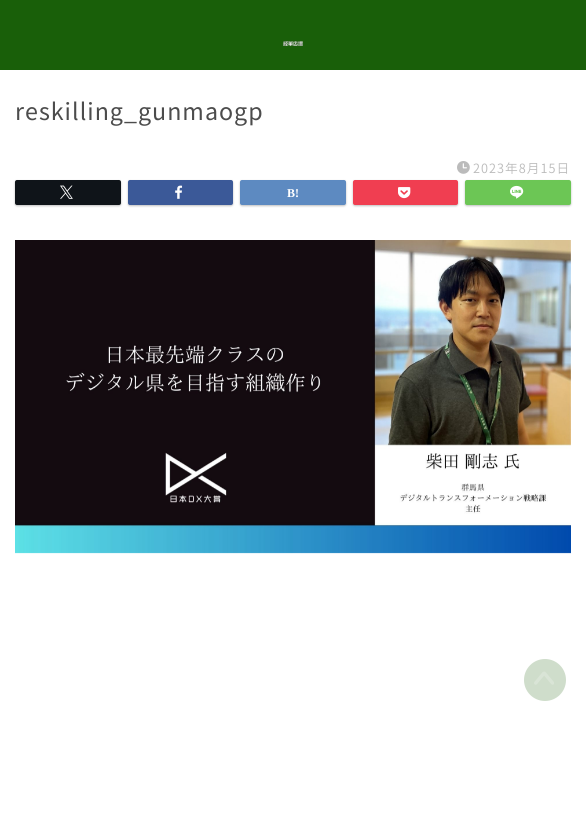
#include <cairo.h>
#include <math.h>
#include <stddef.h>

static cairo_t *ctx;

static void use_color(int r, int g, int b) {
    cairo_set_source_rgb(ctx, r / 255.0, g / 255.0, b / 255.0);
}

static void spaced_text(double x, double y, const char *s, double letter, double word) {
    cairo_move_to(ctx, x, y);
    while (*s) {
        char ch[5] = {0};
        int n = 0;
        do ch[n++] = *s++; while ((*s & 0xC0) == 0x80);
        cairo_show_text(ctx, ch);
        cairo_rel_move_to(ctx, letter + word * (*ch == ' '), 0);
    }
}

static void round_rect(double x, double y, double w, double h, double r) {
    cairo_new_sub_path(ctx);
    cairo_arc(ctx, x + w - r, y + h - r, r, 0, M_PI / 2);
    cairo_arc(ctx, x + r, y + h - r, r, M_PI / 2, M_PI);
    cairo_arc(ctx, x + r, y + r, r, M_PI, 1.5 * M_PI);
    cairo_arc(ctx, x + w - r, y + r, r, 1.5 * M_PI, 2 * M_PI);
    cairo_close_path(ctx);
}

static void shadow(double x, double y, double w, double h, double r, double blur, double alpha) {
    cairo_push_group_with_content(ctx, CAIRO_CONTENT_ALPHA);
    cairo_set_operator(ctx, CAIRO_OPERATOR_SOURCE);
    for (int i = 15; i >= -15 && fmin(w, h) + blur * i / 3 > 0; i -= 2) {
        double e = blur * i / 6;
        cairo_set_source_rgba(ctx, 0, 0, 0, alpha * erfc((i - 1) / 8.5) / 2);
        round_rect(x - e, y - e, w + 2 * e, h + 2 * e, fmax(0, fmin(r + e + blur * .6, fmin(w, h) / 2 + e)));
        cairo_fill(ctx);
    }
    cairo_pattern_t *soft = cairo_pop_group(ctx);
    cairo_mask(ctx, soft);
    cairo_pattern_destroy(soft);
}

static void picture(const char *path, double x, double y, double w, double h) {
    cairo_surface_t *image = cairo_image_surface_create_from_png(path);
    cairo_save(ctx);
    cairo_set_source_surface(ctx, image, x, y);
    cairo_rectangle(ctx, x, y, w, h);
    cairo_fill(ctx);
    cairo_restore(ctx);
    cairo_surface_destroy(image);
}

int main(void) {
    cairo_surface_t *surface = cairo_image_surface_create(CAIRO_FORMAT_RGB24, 586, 824);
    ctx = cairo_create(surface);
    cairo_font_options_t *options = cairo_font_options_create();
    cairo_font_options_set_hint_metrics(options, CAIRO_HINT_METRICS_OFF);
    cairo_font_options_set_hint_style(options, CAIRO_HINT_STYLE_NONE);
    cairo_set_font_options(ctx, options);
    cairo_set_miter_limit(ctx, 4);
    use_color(255, 255, 255);
    cairo_paint(ctx);
    use_color(25, 95, 9);
    cairo_rectangle(ctx, 0, 0, 586, 70);
    cairo_fill(ctx);
    picture("img1.png", 283, 41, 20, 5);
    cairo_select_font_face(ctx, "Noto Sans JP", CAIRO_FONT_SLANT_NORMAL, CAIRO_FONT_WEIGHT_NORMAL);
    cairo_set_font_size(ctx, 23.25);
    use_color(76, 76, 76);
    spaced_text(15, 120, "reskilling_gunmaogp", 1, 0);
    picture("img2.png", 457, 161, 13, 13);
    cairo_select_font_face(ctx, "Noto Sans JP Light", CAIRO_FONT_SLANT_NORMAL, CAIRO_FONT_WEIGHT_NORMAL);
    cairo_set_font_size(ctx, 12.75);
    use_color(187, 187, 187);
    spaced_text(473, 173, "2023年8月15日", 1, 0);
    use_color(0, 0, 0);
    shadow(15, 181, 106, 25, 2, 1, 0.25);
    use_color(15, 20, 25);
    round_rect(16, 181, 104, 23, 1);
    cairo_fill_preserve(ctx);
    cairo_stroke(ctx);
    picture("img3.png", 60, 185, 13, 14);
    use_color(0, 0, 0);
    shadow(128, 181, 105, 25, 2, 1, 0.25);
    use_color(59, 89, 152);
    round_rect(129, 181, 103, 23, 1);
    cairo_fill_preserve(ctx);
    cairo_stroke(ctx);
    picture("img4.png", 175, 185, 8, 14);
    use_color(0, 0, 0);
    shadow(240, 181, 106, 25, 2, 1, 0.25);
    use_color(93, 138, 193);
    round_rect(241, 181, 104, 23, 1);
    cairo_fill_preserve(ctx);
    cairo_stroke(ctx);
    cairo_select_font_face(ctx, "Liberation Serif", CAIRO_FONT_SLANT_NORMAL, CAIRO_FONT_WEIGHT_BOLD);
    cairo_set_font_size(ctx, 12);
    use_color(255, 255, 255);
    cairo_move_to(ctx, 287, 197);
    cairo_show_text(ctx, "B!");
    use_color(0, 0, 0);
    shadow(353, 181, 105, 25, 2, 1, 0.25);
    use_color(240, 62, 81);
    round_rect(354, 181, 103, 23, 1);
    cairo_fill_preserve(ctx);
    cairo_stroke(ctx);
    picture("img5.png", 398, 187, 13, 12);
    use_color(0, 0, 0);
    shadow(465, 181, 106, 25, 2, 1, 0.25);
    use_color(108, 198, 85);
    round_rect(466, 181, 104, 23, 1);
    cairo_fill_preserve(ctx);
    cairo_stroke(ctx);
    picture("img6.png", 510, 185, 14, 14);
    picture("img7.png", 15, 240, 556, 314);
    use_color(207, 221, 203);
    cairo_arc(ctx, 545, 680, 21, 0, 2 * M_PI);
    cairo_fill(ctx);
    picture("img8.png", 534, 671, 20, 14);
    cairo_surface_write_to_png(surface, "result.png");
    cairo_font_options_destroy(options);
    cairo_destroy(ctx);
    cairo_surface_destroy(surface);
    return 0;
}
